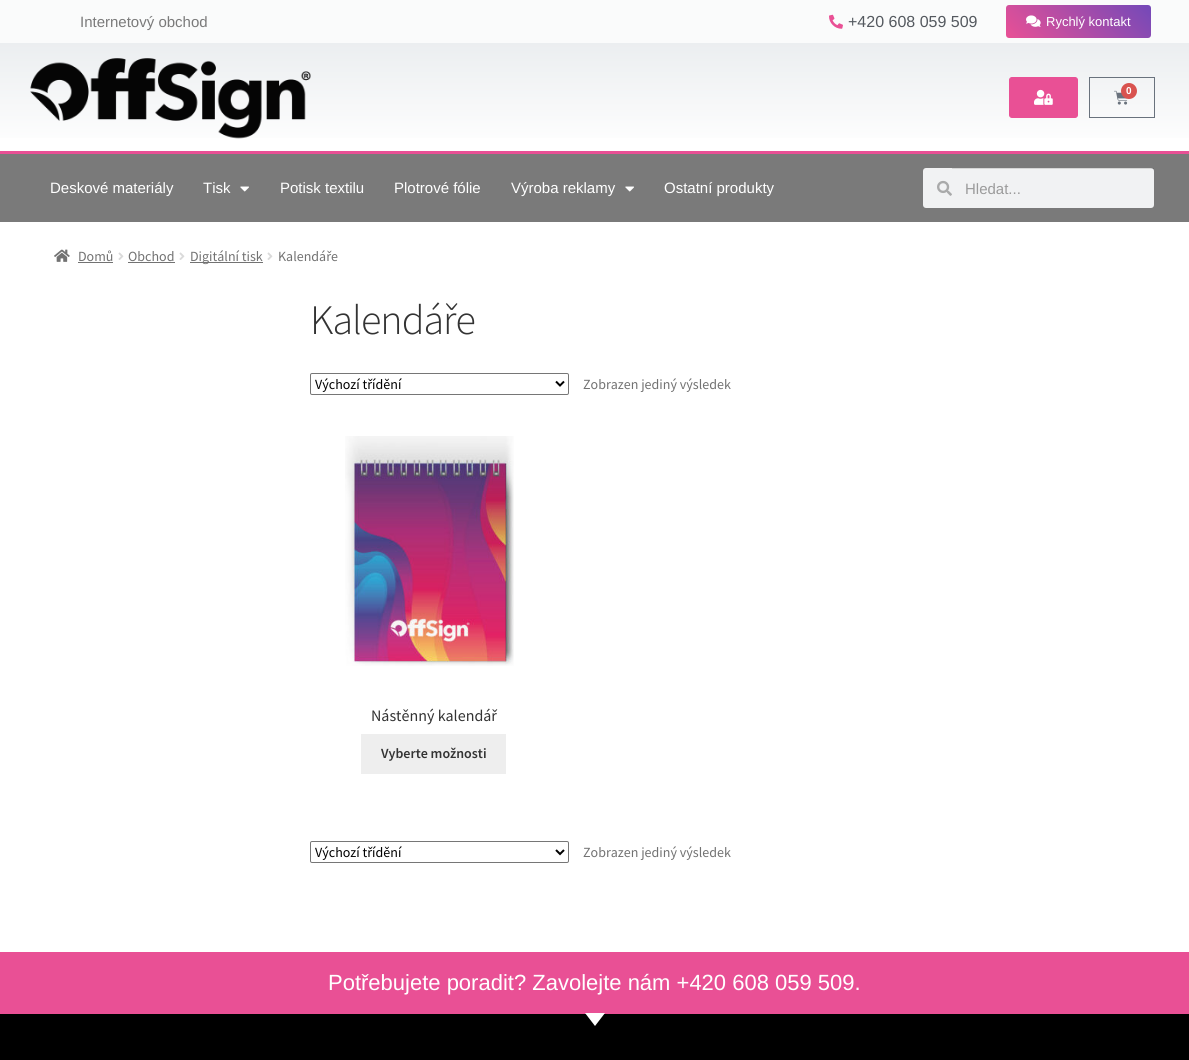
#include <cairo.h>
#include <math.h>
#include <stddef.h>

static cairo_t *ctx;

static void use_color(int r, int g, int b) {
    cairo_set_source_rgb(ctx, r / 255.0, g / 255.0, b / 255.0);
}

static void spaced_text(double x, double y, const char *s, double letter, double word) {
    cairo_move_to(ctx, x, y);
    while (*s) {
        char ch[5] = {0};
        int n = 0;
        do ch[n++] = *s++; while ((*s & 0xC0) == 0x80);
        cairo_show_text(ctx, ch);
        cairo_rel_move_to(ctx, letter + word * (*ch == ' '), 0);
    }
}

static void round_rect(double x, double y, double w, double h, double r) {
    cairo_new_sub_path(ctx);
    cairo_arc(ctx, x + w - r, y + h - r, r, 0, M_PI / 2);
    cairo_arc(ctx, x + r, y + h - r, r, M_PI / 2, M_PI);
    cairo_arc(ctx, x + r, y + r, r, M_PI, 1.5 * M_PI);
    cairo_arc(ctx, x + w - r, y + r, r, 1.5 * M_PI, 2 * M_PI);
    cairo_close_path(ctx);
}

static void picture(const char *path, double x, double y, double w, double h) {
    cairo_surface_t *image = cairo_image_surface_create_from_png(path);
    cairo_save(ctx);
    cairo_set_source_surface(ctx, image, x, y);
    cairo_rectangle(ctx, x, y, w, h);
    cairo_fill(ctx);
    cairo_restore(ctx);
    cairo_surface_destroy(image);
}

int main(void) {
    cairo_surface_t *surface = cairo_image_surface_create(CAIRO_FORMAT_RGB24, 1189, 1060);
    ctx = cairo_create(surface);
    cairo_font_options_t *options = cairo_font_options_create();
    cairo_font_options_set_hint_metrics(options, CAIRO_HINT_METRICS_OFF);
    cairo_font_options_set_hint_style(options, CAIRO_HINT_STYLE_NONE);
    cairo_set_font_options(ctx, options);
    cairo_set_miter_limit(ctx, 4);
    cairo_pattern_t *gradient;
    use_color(255, 255, 255);
    cairo_paint(ctx);
    use_color(250, 251, 251);
    cairo_rectangle(ctx, 0, 0, 1189, 43);
    cairo_fill(ctx);
    cairo_select_font_face(ctx, "Liberation Sans", CAIRO_FONT_SLANT_NORMAL, CAIRO_FONT_WEIGHT_NORMAL);
    cairo_set_font_size(ctx, 15);
    use_color(122, 122, 122);
    cairo_move_to(ctx, 80, 27);
    cairo_show_text(ctx, "Internetový obchod");
    picture("img1.png", 829, 14, 14, 15);
    cairo_set_font_size(ctx, 16);
    use_color(84, 89, 95);
    cairo_move_to(ctx, 848, 27);
    cairo_show_text(ctx, "+420 608 059 509");
    gradient = cairo_pattern_create_linear(1034, 66, 1123, -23);
    cairo_pattern_add_color_stop_rgba(gradient, 0, 0.914, 0.314, 0.584, 1);
    cairo_pattern_add_color_stop_rgba(gradient, 1, 0.451, 0.286, 0.725, 1);
    cairo_set_source(ctx, gradient);
    cairo_pattern_destroy(gradient);
    round_rect(1006, 5, 145, 33, 3);
    cairo_fill(ctx);
    picture("img2.png", 1026, 15, 15, 12);
    cairo_set_font_size(ctx, 13);
    use_color(255, 255, 255);
    cairo_move_to(ctx, 1046, 26);
    cairo_show_text(ctx, "Rychlý kontakt");
    gradient = cairo_pattern_create_linear(595, 43, 595, 151);
    cairo_pattern_add_color_stop_rgba(gradient, 0, 0.922, 0.933, 0.941, 1);
    cairo_pattern_add_color_stop_rgba(gradient, 1, 1, 1, 1, 1);
    cairo_set_source(ctx, gradient);
    cairo_pattern_destroy(gradient);
    cairo_rectangle(ctx, 0, 43, 1189, 95);
    cairo_fill(ctx);
    picture("img3.png", 30, 58, 281, 81);
    use_color(233, 80, 149);
    round_rect(1009.5, 77.5, 68, 40, 2.5);
    cairo_fill_preserve(ctx);
    cairo_set_line_width(ctx, 1);
    cairo_stroke(ctx);
    picture("img4.png", 1034, 89, 19, 16);
    cairo_rectangle(ctx, 1089.5, 77.5, 65, 40);
    use_color(105, 114, 125);
    cairo_stroke(ctx);
    picture("img5.png", 1114, 90, 14, 15);
    use_color(217, 83, 79);
    cairo_arc(ctx, 1129, 91, 8, 0, 2 * M_PI);
    cairo_fill(ctx);
    cairo_select_font_face(ctx, "Liberation Sans", CAIRO_FONT_SLANT_NORMAL, CAIRO_FONT_WEIGHT_BOLD);
    cairo_set_font_size(ctx, 10);
    use_color(255, 255, 255);
    cairo_move_to(ctx, 1126, 94);
    cairo_show_text(ctx, "0");
    use_color(122, 122, 122);
    cairo_rectangle(ctx, 0, 154, 1189, 68);
    cairo_fill(ctx);
    use_color(233, 80, 149);
    cairo_rectangle(ctx, 0, 151, 1189, 3);
    cairo_fill(ctx);
    cairo_select_font_face(ctx, "Liberation Sans", CAIRO_FONT_SLANT_NORMAL, CAIRO_FONT_WEIGHT_NORMAL);
    cairo_set_font_size(ctx, 15);
    use_color(255, 255, 255);
    cairo_move_to(ctx, 50, 193);
    cairo_show_text(ctx, "Deskové materiály");
    cairo_move_to(ctx, 203, 193);
    cairo_show_text(ctx, "Tisk");
    picture("img6.png", 240, 186, 9, 6);
    cairo_move_to(ctx, 280, 193);
    cairo_show_text(ctx, "Potisk textilu");
    cairo_move_to(ctx, 394, 193);
    cairo_show_text(ctx, "Plotrové fólie");
    cairo_move_to(ctx, 511, 193);
    cairo_show_text(ctx, "Výroba reklamy");
    picture("img6.png", 625, 186, 9, 6);
    cairo_move_to(ctx, 664, 193);
    cairo_show_text(ctx, "Ostatní produkty");
    use_color(241, 242, 243);
    round_rect(923, 168, 231, 40, 3);
    cairo_fill(ctx);
    picture("img7.png", 937, 180, 15, 16);
    cairo_set_source_rgba(ctx, 0, 0, 0, 0.12);
    cairo_rectangle(ctx, 952, 168, 202, 1);
    cairo_fill(ctx);
    use_color(155, 155, 155);
    cairo_move_to(ctx, 965, 194);
    cairo_show_text(ctx, "Hledat...");
    picture("img8.png", 54, 249, 16, 13);
    cairo_select_font_face(ctx, "Source Sans Pro", CAIRO_FONT_SLANT_NORMAL, CAIRO_FONT_WEIGHT_NORMAL);
    cairo_set_font_size(ctx, 14);
    use_color(114, 114, 114);
    cairo_move_to(ctx, 78, 261);
    cairo_show_text(ctx, "Domů");
    cairo_rectangle(ctx, 78, 262, 35, 1);
    cairo_fill(ctx);
    picture("img9.png", 118, 252, 6, 8);
    cairo_move_to(ctx, 128, 261);
    cairo_show_text(ctx, "Obchod");
    cairo_rectangle(ctx, 128, 262, 47, 1);
    cairo_fill(ctx);
    picture("img9.png", 179, 252, 6, 8);
    cairo_rectangle(ctx, 190, 262, 73, 1);
    cairo_fill(ctx);
    cairo_move_to(ctx, 190, 261);
    cairo_show_text(ctx, "Digitální tisk");
    picture("img9.png", 267, 252, 6, 8);
    cairo_move_to(ctx, 278, 261);
    cairo_show_text(ctx, "Kalendáře");
    cairo_select_font_face(ctx, "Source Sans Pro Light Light", CAIRO_FONT_SLANT_NORMAL, CAIRO_FONT_WEIGHT_NORMAL);
    cairo_set_font_size(ctx, 42);
    use_color(51, 51, 51);
    spaced_text(310, 334, "Kalendáře", -1, 0);
    round_rect(310.5, 373.5, 258, 21, 1.5);
    use_color(118, 118, 118);
    cairo_stroke(ctx);
    cairo_new_path(ctx);
    cairo_move_to(ctx, 556, 381.5);
    cairo_line_to(ctx, 560, 385.5);
    cairo_line_to(ctx, 564, 381.5);
    use_color(0, 0, 0);
    cairo_set_line_width(ctx, 2);
    cairo_stroke(ctx);
    cairo_select_font_face(ctx, "Source Sans Pro", CAIRO_FONT_SLANT_NORMAL, CAIRO_FONT_WEIGHT_NORMAL);
    cairo_set_font_size(ctx, 14);
    cairo_move_to(ctx, 315, 389);
    cairo_show_text(ctx, "Výchozí třídění");
    use_color(114, 114, 114);
    cairo_move_to(ctx, 583, 389);
    cairo_show_text(ctx, "Zobrazen jediný výsledek");
    picture("img10.png", 345, 436, 169, 230);
    cairo_set_font_size(ctx, 16);
    use_color(51, 51, 51);
    cairo_move_to(ctx, 371, 721);
    cairo_show_text(ctx, "Nástěnný kalendář");
    use_color(238, 238, 238);
    cairo_rectangle(ctx, 361, 734, 145, 40);
    cairo_fill(ctx);
    cairo_select_font_face(ctx, "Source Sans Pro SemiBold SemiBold", CAIRO_FONT_SLANT_NORMAL, CAIRO_FONT_WEIGHT_NORMAL);
    cairo_set_font_size(ctx, 14);
    use_color(51, 51, 51);
    cairo_move_to(ctx, 381, 758);
    cairo_show_text(ctx, "Vyberte možnosti");
    round_rect(310.5, 841.5, 258, 21, 1.5);
    use_color(118, 118, 118);
    cairo_set_line_width(ctx, 1);
    cairo_stroke(ctx);
    cairo_new_path(ctx);
    cairo_move_to(ctx, 556, 850);
    cairo_line_to(ctx, 560, 854);
    cairo_line_to(ctx, 564, 850);
    use_color(0, 0, 0);
    cairo_set_line_width(ctx, 2);
    cairo_stroke(ctx);
    cairo_select_font_face(ctx, "Source Sans Pro", CAIRO_FONT_SLANT_NORMAL, CAIRO_FONT_WEIGHT_NORMAL);
    cairo_move_to(ctx, 315, 857);
    cairo_show_text(ctx, "Výchozí třídění");
    use_color(114, 114, 114);
    cairo_move_to(ctx, 583, 857);
    cairo_show_text(ctx, "Zobrazen jediný výsledek");
    use_color(233, 80, 149);
    cairo_rectangle(ctx, 0, 952, 1189, 62);
    cairo_fill(ctx);
    cairo_select_font_face(ctx, "Liberation Sans", CAIRO_FONT_SLANT_NORMAL, CAIRO_FONT_WEIGHT_NORMAL);
    cairo_set_font_size(ctx, 22);
    use_color(255, 255, 255);
    cairo_move_to(ctx, 328, 990);
    cairo_show_text(ctx, "Potřebujete poradit? Zavolejte nám +420 608 059 509.");
    use_color(0, 0, 0);
    cairo_rectangle(ctx, 0, 1014, 1189, 46);
    cairo_fill(ctx);
    use_color(255, 255, 255);
    cairo_new_path(ctx);
    cairo_move_to(ctx, 595, 1026);
    cairo_line_to(ctx, 585, 1013);
    cairo_line_to(ctx, 605, 1013);
    cairo_close_path(ctx);
    cairo_fill(ctx);
    cairo_surface_write_to_png(surface, "result.png");
    cairo_font_options_destroy(options);
    cairo_destroy(ctx);
    cairo_surface_destroy(surface);
    return 0;
}
